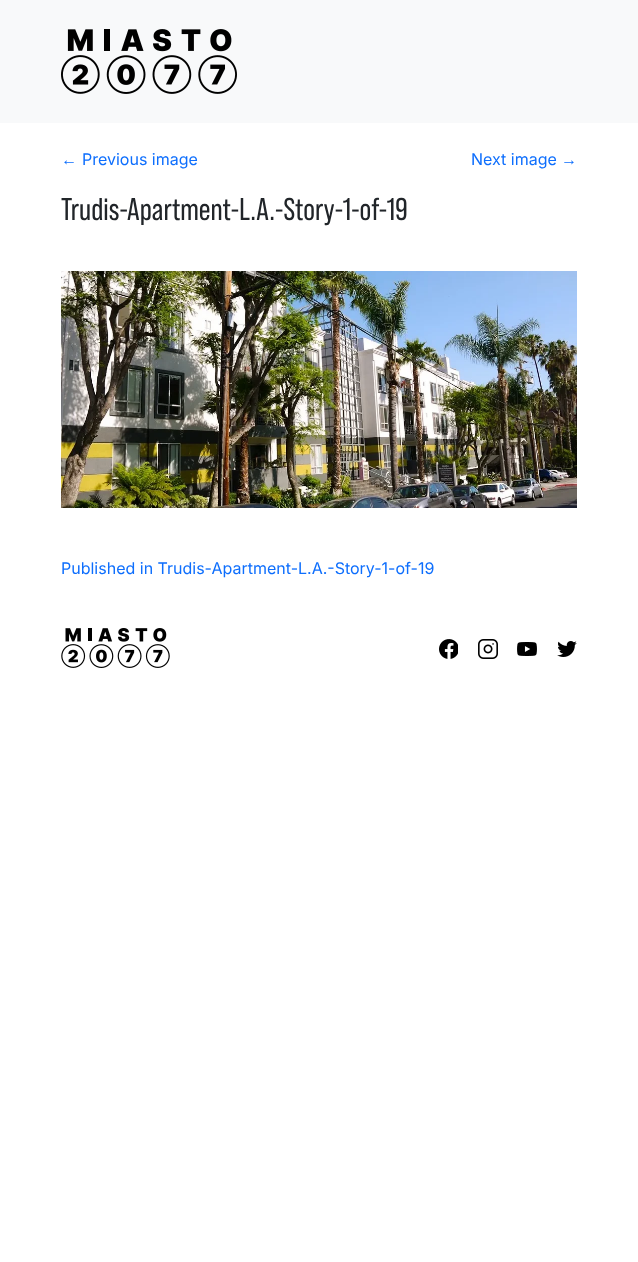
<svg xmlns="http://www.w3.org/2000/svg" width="638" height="1262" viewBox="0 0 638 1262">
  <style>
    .t1 { font: 16px Liberation Sans; fill: #0d6efd; }
    .t2 { font: 16px Inter; fill: #0d6efd; }
    .t3 { font: 31.5px Bebas Neue; fill: #212529; }
  </style>
  <rect width="100%" height="100%" fill="#fff"/>
  <rect x="0" y="0" width="638" height="123" fill="#f8f9fa"/>
  <image x="61" y="29" width="176" height="65" href="images/1.png"/>
  <text x="61" y="165" class="t1">←</text>
  <text x="82" y="165" class="t2">Previous image</text>
  <text x="471" y="165" class="t2">Next image</text>
  <text x="561" y="165" class="t1">→</text>
  <text x="61" y="220" class="t3">Trudis-Apartment-L.A.-Story-1-of-19</text>
  <image x="61" y="271" width="516" height="237" href="images/2.png"/>
  <text x="61" y="574" class="t2">Published in Trudis-Apartment-L.A.-Story-1-of-19</text>
  <image x="61" y="628" width="109" height="40" href="images/3.png"/>
  <image x="439" y="639" width="19" height="20" href="images/4.png"/>
  <image x="478" y="639" width="20" height="20" href="images/5.png"/>
  <image x="517" y="642" width="20" height="14" href="images/6.png"/>
  <image x="557" y="641" width="20" height="16" href="images/7.png"/>
</svg>
